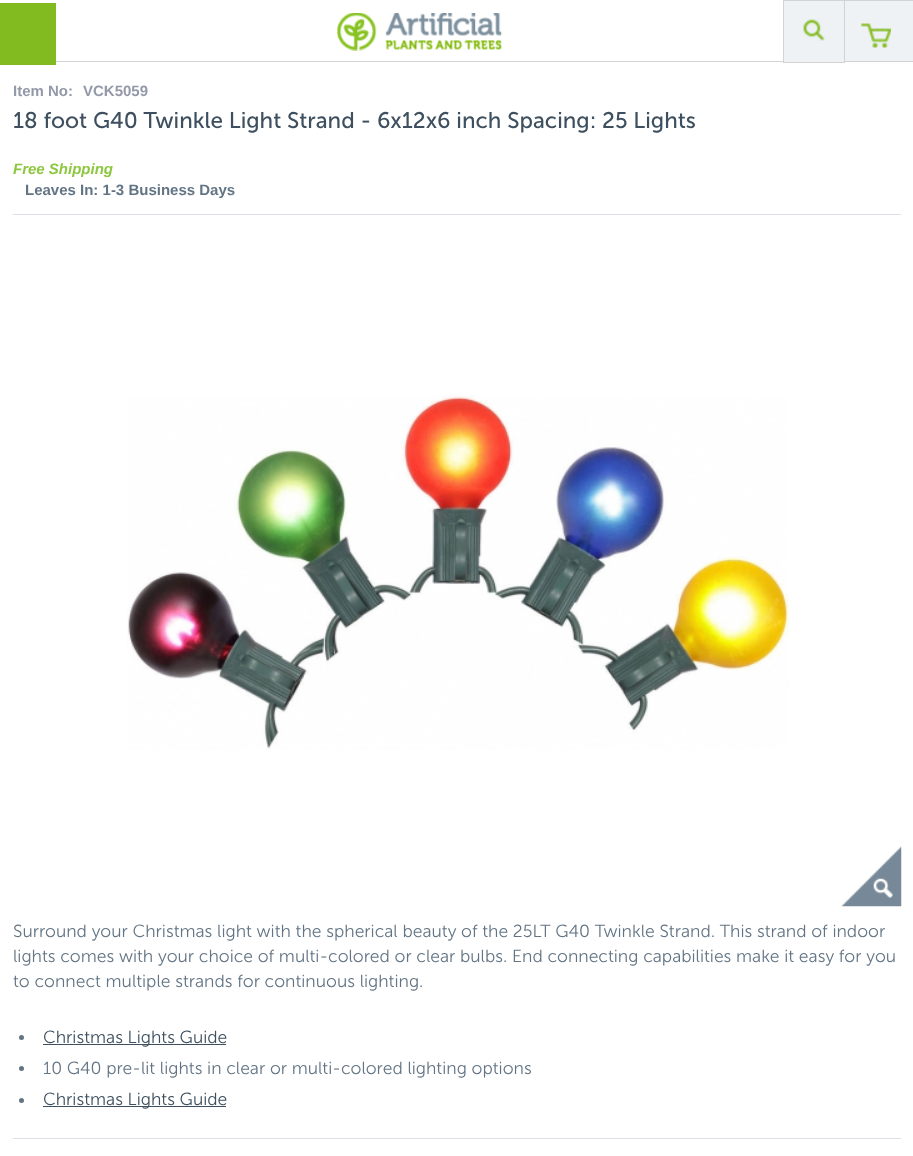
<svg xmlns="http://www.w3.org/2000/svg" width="913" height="1156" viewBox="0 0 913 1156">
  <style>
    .t1 { font: bold 15px Liberation Sans; fill: #9399a9; }
    .t2 { font: 22.5px Museo Sans; fill: #3e505f; }
    .t3 { font: italic bold 15px Liberation Sans; fill: #8dc63f; }
    .t4 { font: bold 15px Liberation Sans; fill: #637585; }
    .t5 { font: 300 17.5px Museo Sans; fill: #637585; }
    .t6 { font: 300 17.5px Museo Sans; fill: #3e505f; }
  </style>
  <rect width="100%" height="100%" fill="#fff"/>
  <rect x="56" y="61" width="857" height="1" fill="#d1d3d4"/>
  <rect x="0" y="3" width="56" height="62" fill="#82bb1f"/>
  <image x="337" y="13" width="165" height="38" href="images/1.png"/>
  <rect x="783.5" y="0.5" width="61" height="62" fill="#eef2f5" stroke="#d1d3d4"/>
  <image x="803" y="19" width="22" height="22" href="images/2.png"/>
  <rect x="845" y="1" width="68" height="60" fill="#eef2f5"/>
  <rect x="845" y="0" width="68" height="1" fill="#d1d3d4"/>
  <image x="861" y="23" width="30" height="25" href="images/3.png"/>
  <text x="13" y="96" class="t1">Item No:</text>
  <text x="83" y="96" class="t1">VCK5059</text>
  <text x="13" y="128" class="t2">18 foot G40 Twinkle Light Strand - 6x12x6 inch Spacing: 25 Lights</text>
  <rect x="13" y="214" width="888" height="1" fill="#dcdfe6"/>
  <text x="13" y="174" class="t3">Free Shipping</text>
  <text x="25" y="195" class="t4">Leaves In: 1-3 Business Days</text>
  <image x="127" y="395" width="662" height="355" href="images/4.png"/>
  <image x="841" y="846" width="61" height="61" href="images/5.png"/>
  <text x="13" y="937" class="t5">Surround your Christmas light with the spherical beauty of the 25LT G40 Twinkle Strand. This strand of indoor</text>
  <text x="13" y="962" class="t5">lights comes with your choice of multi-colored or clear bulbs. End connecting capabilities make it easy for you</text>
  <text x="13" y="987" class="t5">to connect multiple strands for continuous lighting.</text>
  <rect x="13" y="1138" width="888" height="1" fill="#dcdfe6"/>
  <circle cx="21.5" cy="1037.5" r="2.5" fill="#637585"/>
  <rect x="43" y="1044" width="183" height="1" fill="#3e505f"/>
  <text x="43" y="1043" class="t6">Christmas Lights Guide</text>
  <circle cx="21.5" cy="1068.5" r="2.5" fill="#637585"/>
  <text x="43" y="1074" class="t5">10 G40 pre-lit lights in clear or multi-colored lighting options</text>
  <circle cx="21.5" cy="1100.5" r="2.5" fill="#637585"/>
  <rect x="43" y="1106" width="183" height="1" fill="#3e505f"/>
  <text x="43" y="1105" class="t6">Christmas Lights Guide</text>
</svg>
